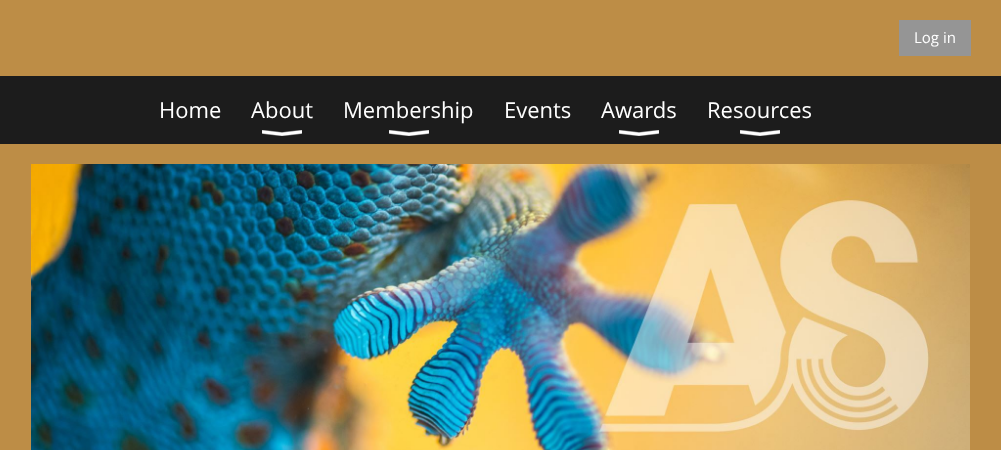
<svg xmlns="http://www.w3.org/2000/svg" width="1001" height="450" viewBox="0 0 1001 450">
  <style>
    .t1 { font: 15px Open Sans; fill: #fff; }
    .t2 { font: 22px Open Sans; fill: #fff; }
  </style>
  <rect width="100%" height="100%" fill="#bd8d46"/>
  <rect x="899" y="20" width="72" height="36" fill="#959595"/>
  <text x="914" y="43" class="t1">Log in</text>
  <rect x="0" y="76" width="1001" height="68" fill="#1c1c1c"/>
  <text x="159" y="118" class="t2">Home</text>
  <text x="251" y="118" class="t2">About</text>
  <image x="262" y="130" width="40" height="6" href="images/1.png"/>
  <text x="343" y="118" class="t2">Membership</text>
  <image x="389" y="130" width="40" height="6" href="images/1.png"/>
  <text x="504" y="118" class="t2">Events</text>
  <text x="601" y="118" class="t2">Awards</text>
  <image x="619" y="130" width="40" height="6" href="images/1.png"/>
  <text x="707" y="118" class="t2">Resources</text>
  <image x="740" y="130" width="40" height="6" href="images/1.png"/>
  <image x="31" y="164" width="939" height="286" href="images/2.png"/>
</svg>
